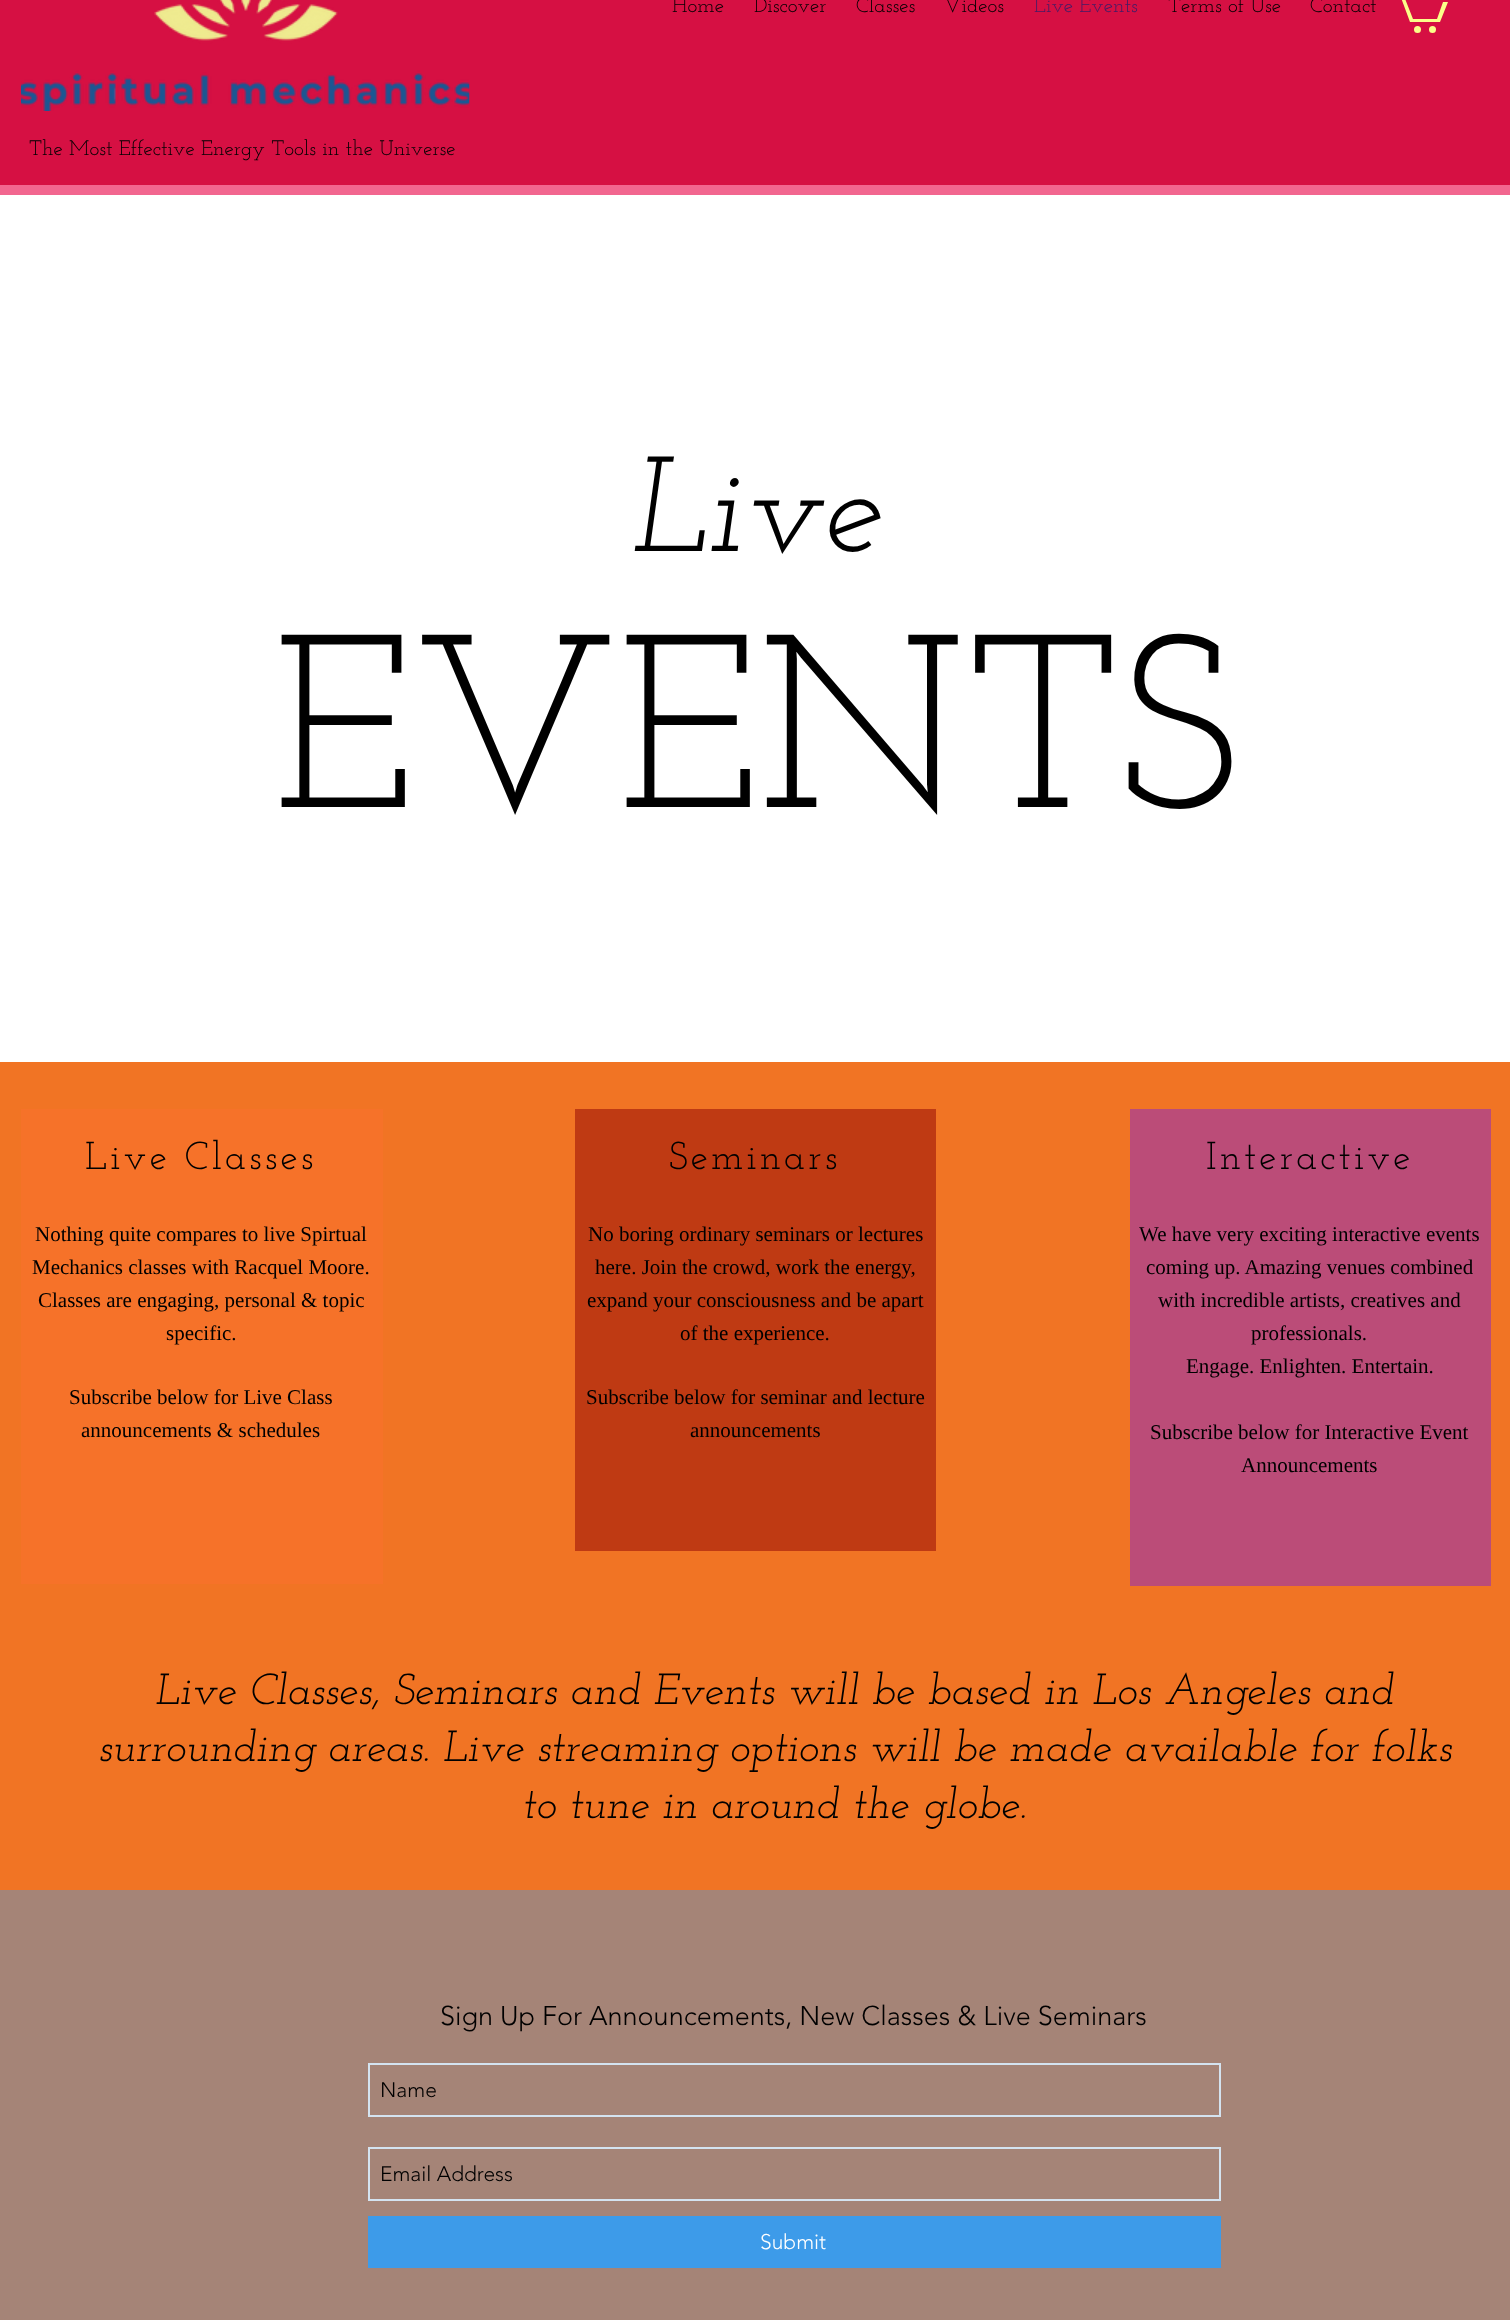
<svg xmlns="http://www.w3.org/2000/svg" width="1510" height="2320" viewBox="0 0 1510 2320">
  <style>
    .t1 { font: 21px Josefin Slab; fill: #000; }
    .t2 { font: 21px Josefin Slab; fill: #411c67; }
    .t3 { font: italic 135px Josefin Slab; fill: #000; }
    .t4 { font: 246px Josefin Slab; fill: #000; }
    .t5 { font: 39px Josefin Slab; letter-spacing: 3.1px; fill: #000; }
    .t6 { font: 21px Liberation Serif; fill: #000; }
    .t7 { font: italic 43.5px Josefin Slab; fill: #000; }
    .t8 { font: 300 27px 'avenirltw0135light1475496'; fill: #000; }
    .t9 { font: 300 21px 'avenirltw0135light1475496'; fill: #000; }
    .t10 { font: 300 21px 'avenirltw0135light1475496'; fill: #fff; }
  </style>
  <rect width="100%" height="100%" fill="#f17424"/>
  <rect x="0" y="0" width="1510" height="185" fill="#d61043"/>
  <rect x="0" y="185" width="1510" height="10" fill="#f2668f"/>
  <image x="21" y="0" width="449" height="111" href="images/1.png"/>
  <text x="672" y="12" class="t1">Home</text>
  <text x="754" y="12" class="t1">Discover</text>
  <text x="856" y="12" class="t1">Classes</text>
  <text x="944" y="12" class="t1">Videos</text>
  <text x="1034" y="12" class="t2">Live Events</text>
  <text x="1168" y="12" class="t1">Terms of Use</text>
  <text x="1310" y="12" class="t1">Contact</text>
  <path d="M1448 2L1440 22H1410L1400-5H1392V-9H1402L1413 19H1437L1443 2" fill="#fbff89"/>
  <circle cx="1432.5" cy="29.5" r="3.5" fill="#fbff89"/>
  <circle cx="1417.5" cy="29.5" r="3.5" fill="#fbff89"/>
  <text x="29" y="155" class="t1">The Most Effective Energy Tools in the Universe</text>
  <rect x="0" y="195" width="1510" height="867" fill="#fff"/>
  <text x="630" y="551" class="t3">Live</text>
  <text x="273" y="807" class="t4">EVENTS</text>
  <rect x="21" y="1109" width="362" height="475" fill="#f67229"/>
  <text x="85" y="1169" class="t5">Live Classes</text>
  <text x="35" y="1241" class="t6">Nothing quite compares to live Spirtual</text>
  <text x="32" y="1274" class="t6">Mechanics classes with Racquel Moore.</text>
  <text x="38" y="1307" class="t6">Classes are engaging, personal &amp; topic</text>
  <text x="166" y="1340" class="t6">specific.</text>
  <text x="69" y="1404" class="t6">Subscribe below for Live Class</text>
  <text x="81" y="1437" class="t6">announcements &amp; schedules</text>
  <rect x="575" y="1109" width="361" height="442" fill="#bf3a13"/>
  <text x="669" y="1169" class="t5">Seminars</text>
  <text x="588" y="1241" class="t6">No boring ordinary seminars or lectures</text>
  <text x="595" y="1274" class="t6">here. Join the crowd, work the energy,</text>
  <text x="587" y="1307" class="t6">expand your consciousness and be apart</text>
  <text x="680" y="1340" class="t6">of the experience.</text>
  <text x="586" y="1404" class="t6">Subscribe below for seminar and lecture</text>
  <text x="690" y="1437" class="t6">announcements</text>
  <rect x="1130" y="1109" width="361" height="477" fill="#bb4c78"/>
  <text x="1206" y="1169" class="t5">Interactive</text>
  <text x="1139" y="1241" class="t6">We have very exciting interactive events</text>
  <text x="1146" y="1274" class="t6">coming up. Amazing venues combined</text>
  <text x="1158" y="1307" class="t6">with incredible artists, creatives and</text>
  <text x="1251" y="1340" class="t6">professionals.</text>
  <text x="1186" y="1373" class="t6">Engage. Enlighten. Entertain.</text>
  <text x="1150" y="1439" class="t6">Subscribe below for Interactive Event</text>
  <text x="1241" y="1472" class="t6">Announcements</text>
  <text x="155" y="1704" class="t7">Live Classes, Seminars and Events will be based in Los Angeles and</text>
  <text x="98" y="1761" class="t7">surrounding areas. Live streaming options will be made available for folks</text>
  <text x="522" y="1818" class="t7">to tune in around the globe.</text>
  <rect x="0" y="1890" width="1510" height="430" fill="#a58477"/>
  <text x="440" y="2025" class="t8">Sign Up For Announcements, New Classes &amp; Live Seminars</text>
  <rect x="369" y="2064" width="851" height="52" fill="none" stroke="#d4e3f0" stroke-width="2"/>
  <text x="380" y="2097" class="t9">Name</text>
  <rect x="369" y="2148" width="851" height="52" fill="none" stroke="#d4e3f0" stroke-width="2"/>
  <text x="380" y="2181" class="t9">Email Address</text>
  <rect x="368" y="2216" width="853" height="52" fill="#3d9be9"/>
  <text x="760" y="2249" class="t10">Submit</text>
</svg>
